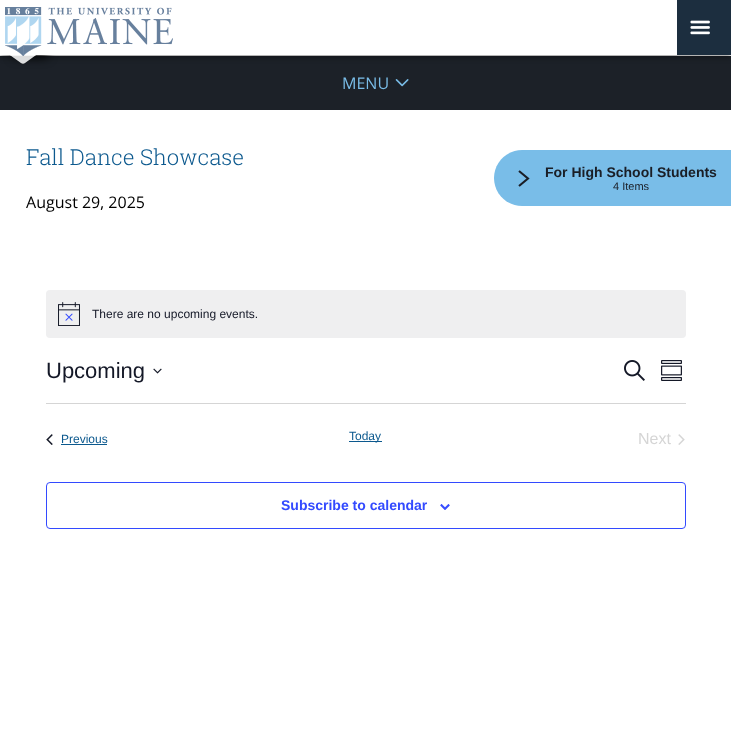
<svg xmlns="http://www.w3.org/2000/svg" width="731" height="751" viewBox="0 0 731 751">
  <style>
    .t1 { font: 16px Open Sans; fill: #79bce7; }
    .t2 { font: 300 22px Roboto Slab; fill: #0c598e; }
    .t3 { font: 16px Open Sans; fill: #000; }
    .t4 { font: 12px Liberation Sans; fill: #141827; }
    .t5 { font: 22px Liberation Sans; fill: #141827; }
    .t6 { font: 12px Liberation Sans; fill: #0c598e; }
    .t7 { font: 16px Liberation Sans; fill: #d5d5d5; }
    .t8 { font: bold 14px Liberation Sans; fill: #334aff; }
    .t9 { font: bold 14px Liberation Sans; fill: #1a1e26; }
    .t10 { font: 11px Liberation Sans; fill: #1a1e26; }
  </style>
  <defs>
    <clipPath id="clip1"><path d="M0 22H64V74H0ZM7 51L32.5 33C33.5 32.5 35 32.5 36 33L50 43C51 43.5 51 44.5 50 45L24.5 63C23.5 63.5 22 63.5 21 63L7 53C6 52.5 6 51.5 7 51Z" clip-rule="evenodd"/></clipPath>
  </defs>
  <rect width="100%" height="100%" fill="#fff"/>
  <rect x="0" y="56" width="731" height="54" fill="#1c2128"/>
  <rect x="0" y="3" width="731" height="55" fill="#00000059" filter="blur(2.5px)"/>
  <rect x="0" y="0" width="677" height="55" fill="#fff"/>
  <g clip-path="url(#clip1)">
    <rect x="13" y="38" width="35" height="20" rx="2" fill="#000000d9" filter="blur(5px)"/>
  </g>
  <path d="M7 51L32 33C33 32 35 32 36 33L50 43C51 44 51 45 50 45L25 63C24 64 22 64 21 63L7 53C6 52 6 51 7 51Z" fill="#ffffffd9"/>
  <rect x="2" y="27" width="57" height="28" fill="#fff"/>
  <image x="5" y="7" width="168" height="49" href="images/1.png"/>
  <rect x="677" y="0" width="54" height="55" fill="#1c2e3f"/>
  <image x="690" y="20" width="20" height="15" href="images/2.png"/>
  <text x="342" y="89" class="t1">MENU</text>
  <image x="395" y="79" width="14" height="8" href="images/3.png"/>
  <text x="26" y="165" class="t2">Fall Dance Showcase</text>
  <text x="26" y="208" class="t3">August 29, 2025</text>
  <rect x="46" y="290" width="640" height="48" rx="4" fill="#efeff0"/>
  <image x="58" y="302" width="22" height="24" href="images/4.png"/>
  <text x="92" y="318" class="t4">There are no upcoming events.</text>
  <text x="46" y="378" class="t5">Upcoming</text>
  <image x="153" y="368" width="9" height="6" href="images/5.png"/>
  <image x="624" y="360" width="21" height="21" href="images/6.png"/>
  <image x="661" y="360" width="21" height="21" href="images/7.png"/>
  <rect x="46" y="403" width="640" height="1" fill="#d5d5d5"/>
  <image x="46" y="434" width="7" height="11" href="images/8.png"/>
  <text x="61" y="443" class="t6">Previous</text>
  <rect x="61" y="444" width="46" height="1" fill="#0c598e"/>
  <rect x="349" y="441" width="33" height="1" fill="#0c598e"/>
  <text x="349" y="440" class="t6">Today</text>
  <text x="638" y="444" class="t7">Next</text>
  <image x="678" y="434" width="7" height="11" href="images/9.png"/>
  <rect x="46.5" y="482.5" width="639" height="46" rx="3.5" fill="none" stroke="#334aff"/>
  <text x="281" y="510" class="t8">Subscribe to calendar</text>
  <image x="440" y="504" width="10" height="6" href="images/10.png"/>
  <path d="M522 150H731V206H522C506.5 206 494 193.5 494 178C494 162.5 506.5 150 522 150Z" fill="#79bde8"/>
  <path d="M519 186L528 178.5L519 171" fill="none" stroke="#1a1e26" stroke-width="2.1"/>
  <text x="545" y="177" class="t9">For High School Students</text>
  <text x="613" y="190" class="t10">4 Items</text>
</svg>
